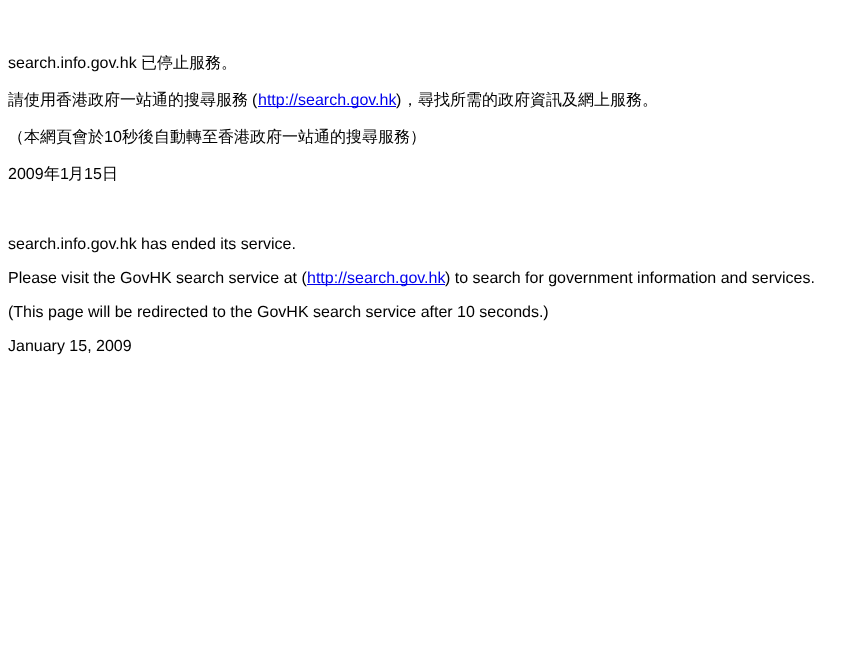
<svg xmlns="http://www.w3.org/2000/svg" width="857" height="652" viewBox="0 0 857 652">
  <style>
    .t1 { font: 16px Liberation Sans; fill: #000; }
    .t2 { font: 500 16px WenQuanYi Zen Hei; fill: #000; }
    .t3 { font: 16px Liberation Sans; fill: #00e; }
  </style>
  <rect width="100%" height="100%" fill="#fff"/>
  <text x="8" y="68" class="t1">search.info.gov.hk</text>
  <text x="141" y="68" class="t2">已停止服務。</text>
  <text x="8" y="105" class="t2">請使用香港政府一站通的搜尋服務</text>
  <text x="252" y="105" class="t1">(</text>
  <rect x="258" y="106" width="138" height="1" fill="#00e"/>
  <text x="258" y="105" class="t3">http://search.gov.hk</text>
  <text x="396" y="105" class="t1">)</text>
  <text x="402" y="105" class="t2">，尋找所需的政府資訊及網上服務。</text>
  <text x="8" y="142" class="t2">（本網頁會於</text>
  <text x="104" y="142" class="t1">10</text>
  <text x="122" y="142" class="t2">秒後自動轉至香港政府一站通的搜尋服務）</text>
  <text x="8" y="179" class="t1">2009</text>
  <text x="44" y="179" class="t2">年</text>
  <text x="60" y="179" class="t1">1</text>
  <text x="68" y="179" class="t2">月</text>
  <text x="84" y="179" class="t1">15</text>
  <text x="102" y="179" class="t2">日</text>
  <text x="8" y="249" class="t1">search.info.gov.hk has ended its service.</text>
  <text x="8" y="283" class="t1">Please visit the GovHK search service at (</text>
  <rect x="307" y="284" width="138" height="1" fill="#00e"/>
  <text x="307" y="283" class="t3">http://search.gov.hk</text>
  <text x="445" y="283" class="t1">) to search for government information and services.</text>
  <text x="8" y="317" class="t1">(This page will be redirected to the GovHK search service after 10 seconds.)</text>
  <text x="8" y="351" class="t1">January 15, 2009</text>
</svg>
